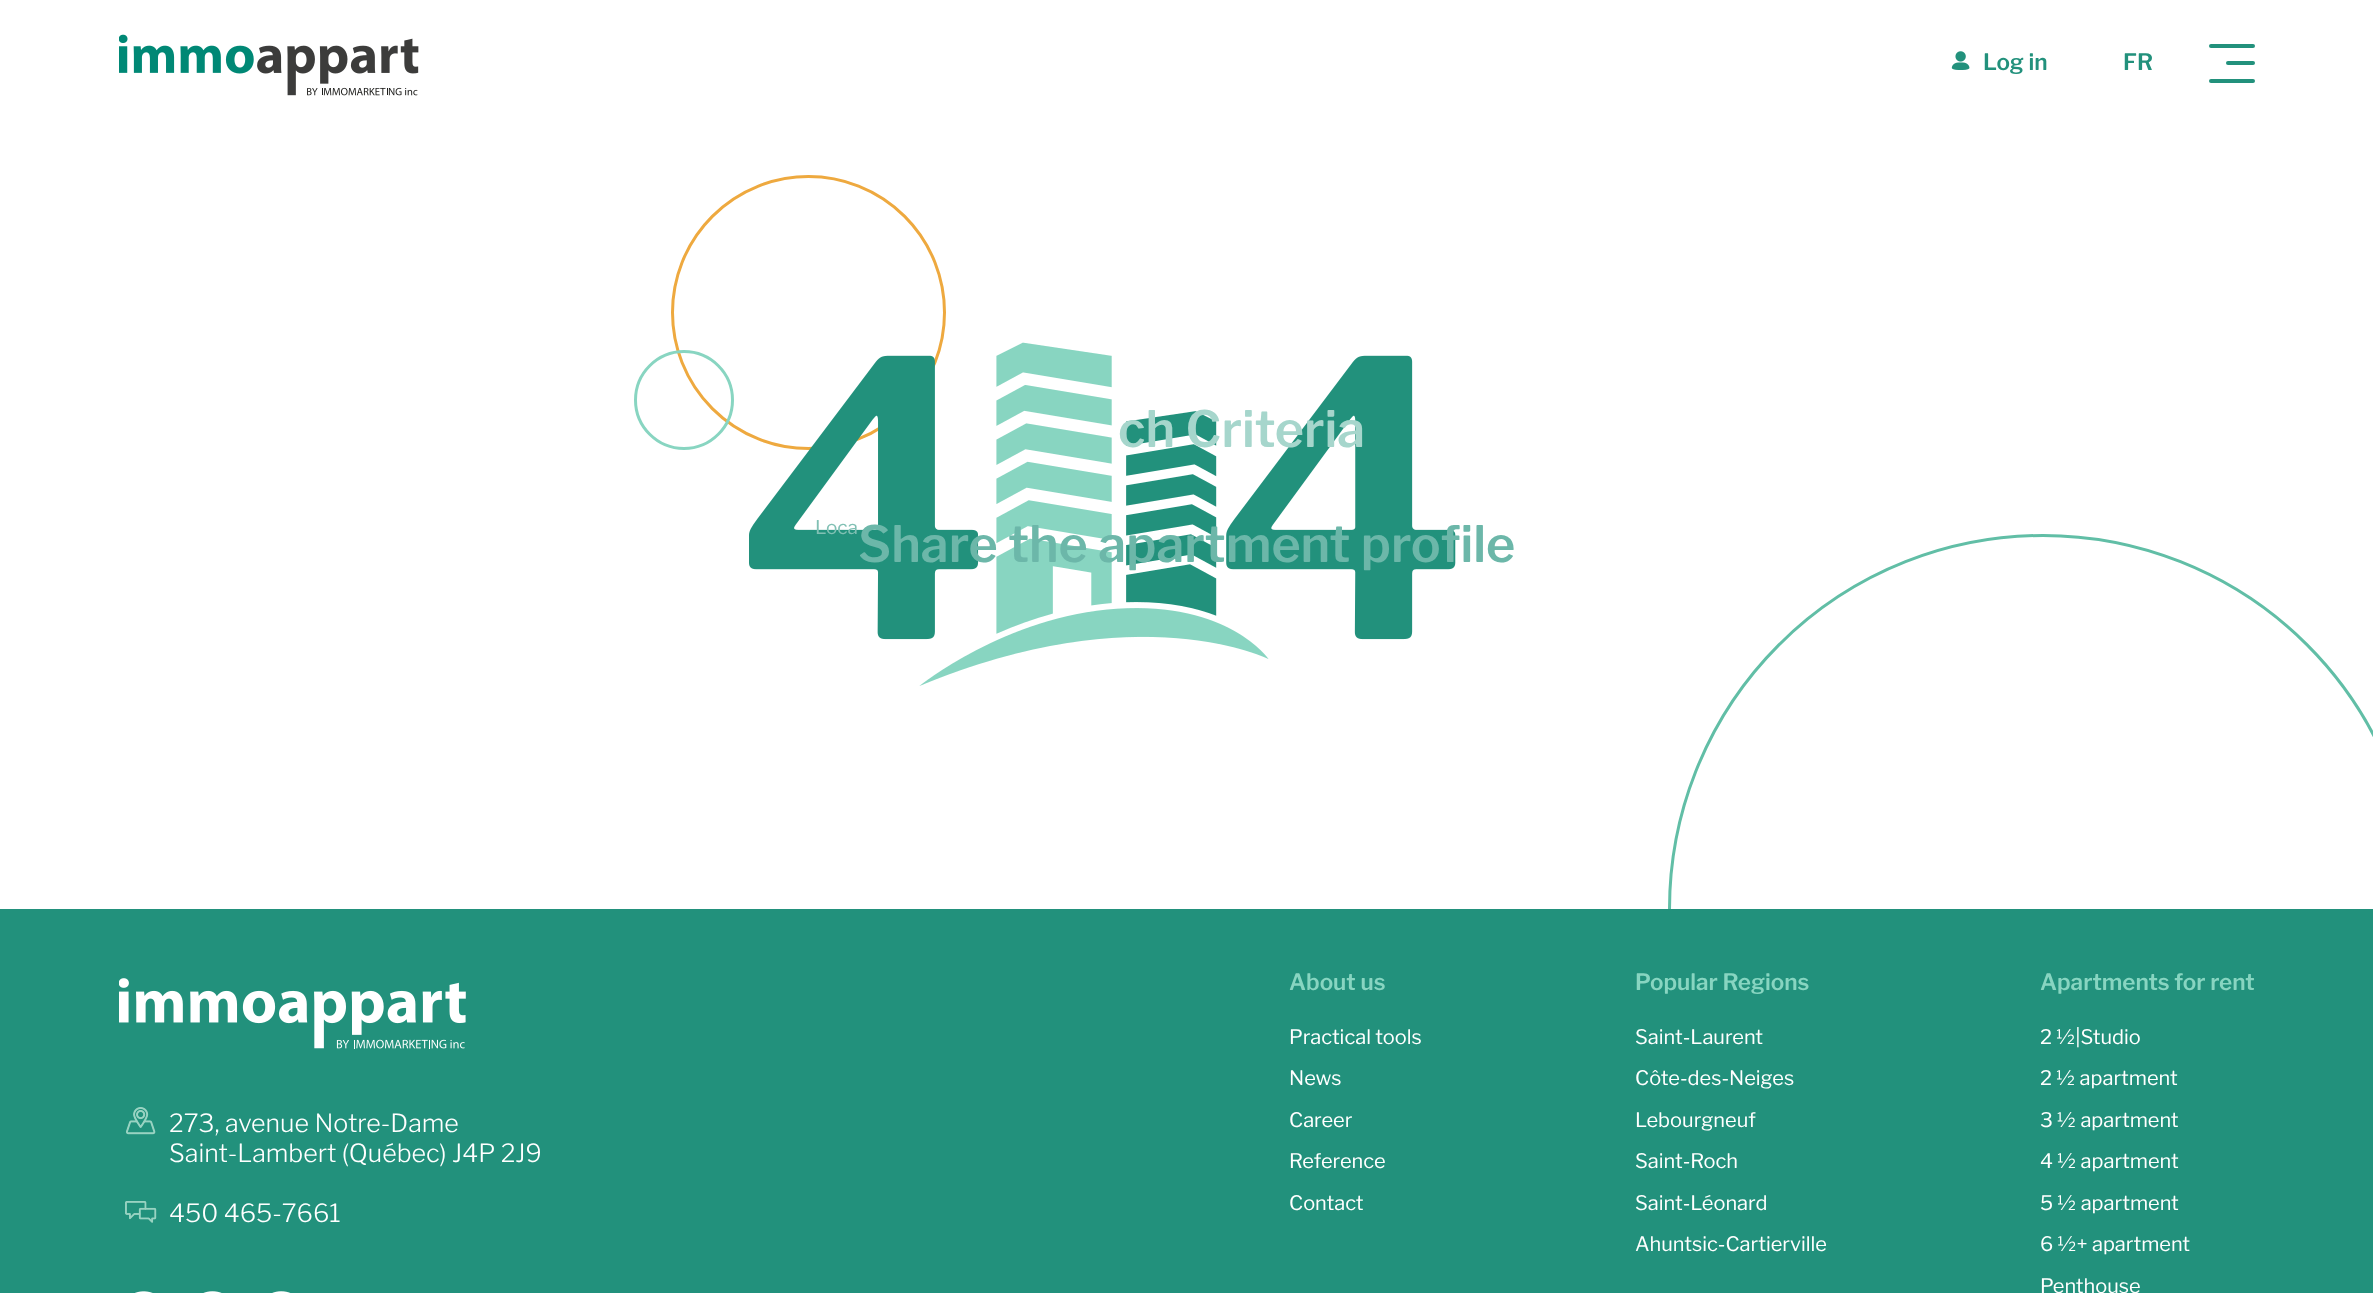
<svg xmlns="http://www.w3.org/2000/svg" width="2373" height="1293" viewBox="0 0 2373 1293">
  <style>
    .t1 { font: 600 22.5px Libre Franklin; fill: #22917c; }
    .t2 { font: 600 50px Libre Franklin; fill: #a6d6cc; }
    .t3 { font: 19px Libre Franklin; fill: #81c0b4; }
    .t4 { font: 600 50px Libre Franklin; fill: #6cb7a9; }
    .t5 { font: 300 25px Libre Franklin; fill: #fff; }
    .t6 { font: 600 22.5px Libre Franklin; fill: #88d5c1; }
    .t7 { font: 20px Libre Franklin; fill: #fff; }
  </style>
  <rect width="100%" height="100%" fill="#fff"/>
  <image x="119" y="34" width="300" height="62" href="images/1.png"/>
  <image x="1951" y="51" width="19" height="19" href="images/2.png"/>
  <text x="1983" y="70" class="t1">Log in</text>
  <text x="2123" y="70" class="t1">FR</text>
  <rect x="2209" y="44" width="46" height="4" rx="2" fill="#22917c"/>
  <rect x="2226" y="61" width="29" height="4" rx="2" fill="#22917c"/>
  <rect x="2209" y="79" width="46" height="4" rx="2" fill="#22917c"/>
  <circle cx="808.5" cy="312.5" r="136" fill="none" stroke="#eea93f" stroke-width="3"/>
  <image x="749" y="342" width="707" height="344" href="images/3.png"/>
  <text x="1118" y="447" class="t2">ch Criteria</text>
  <text x="815" y="534" class="t3">Loca</text>
  <text x="858" y="562" class="t4">Share the apartment profile</text>
  <circle cx="684" cy="400" r="48.5" fill="none" stroke="#88d5c1" stroke-width="3"/>
  <circle cx="2043" cy="909" r="373.5" fill="none" stroke="#61bea6" stroke-width="3"/>
  <rect x="0" y="909" width="2373" height="384" fill="#22917c"/>
  <image x="119" y="978" width="347" height="71" href="images/4.png"/>
  <image x="126" y="1107" width="30" height="28" href="images/5.png"/>
  <text x="169" y="1132" class="t5">273, avenue Notre-Dame</text>
  <text x="169" y="1162" class="t5">Saint-Lambert (Québec) J4P 2J9</text>
  <image x="125" y="1201" width="32" height="22" href="images/6.png"/>
  <text x="169" y="1222" class="t5">450 465-7661</text>
  <image x="135" y="1291" width="18" height="2" href="images/7.png"/>
  <image x="203" y="1291" width="19" height="2" href="images/8.png"/>
  <image x="272" y="1291" width="19" height="2" href="images/9.png"/>
  <text x="1289" y="990" class="t6">About us</text>
  <text x="1289" y="1044" class="t7">Practical tools</text>
  <text x="1289" y="1085" class="t7">News</text>
  <text x="1289" y="1127" class="t7">Career</text>
  <text x="1289" y="1168" class="t7">Reference</text>
  <text x="1289" y="1210" class="t7">Contact</text>
  <text x="1635" y="990" class="t6">Popular Regions</text>
  <text x="1635" y="1044" class="t7">Saint-Laurent</text>
  <text x="1635" y="1085" class="t7">Côte-des-Neiges</text>
  <text x="1635" y="1127" class="t7">Lebourgneuf</text>
  <text x="1635" y="1168" class="t7">Saint-Roch</text>
  <text x="1635" y="1210" class="t7">Saint-Léonard</text>
  <text x="1635" y="1251" class="t7">Ahuntsic-Cartierville</text>
  <text x="2040" y="990" class="t6">Apartments for rent</text>
  <text x="2040" y="1044" class="t7">2 ½|Studio</text>
  <text x="2040" y="1085" class="t7">2 ½ apartment</text>
  <text x="2040" y="1127" class="t7">3 ½ apartment</text>
  <text x="2040" y="1168" class="t7">4 ½ apartment</text>
  <text x="2040" y="1210" class="t7">5 ½ apartment</text>
  <text x="2040" y="1251" class="t7">6 ½+ apartment</text>
  <text x="2040" y="1293" class="t7">Penthouse</text>
</svg>
